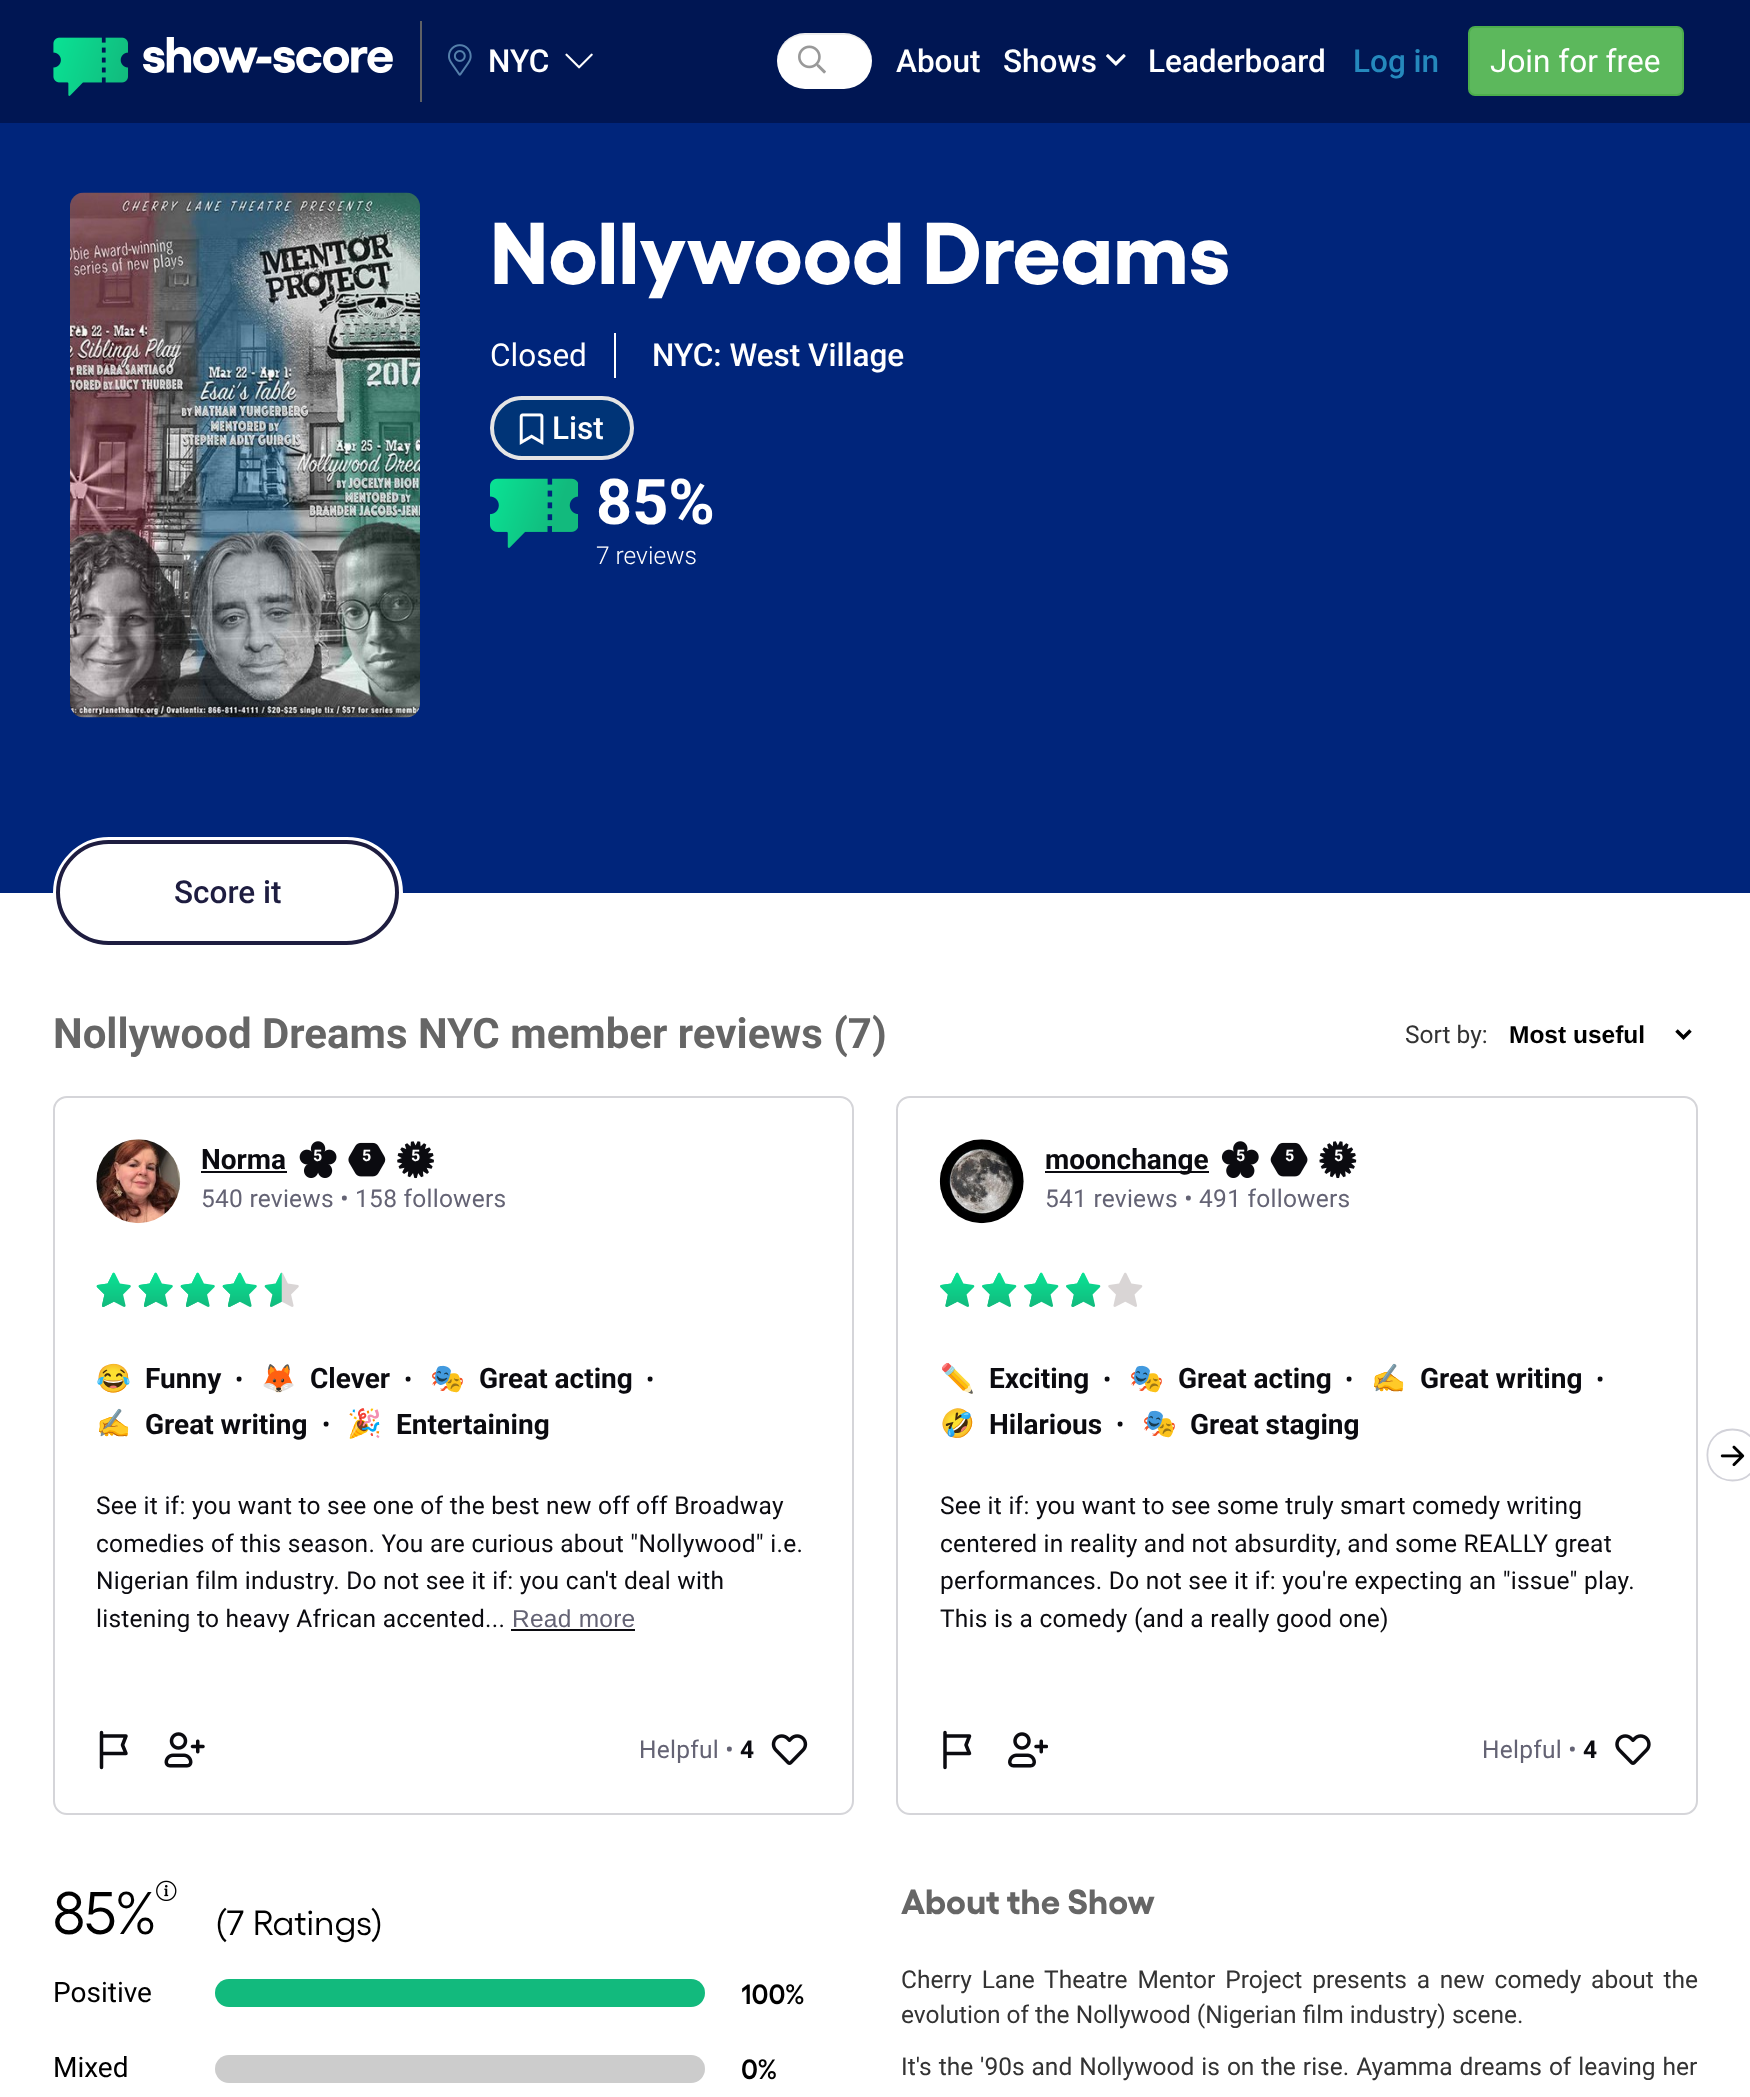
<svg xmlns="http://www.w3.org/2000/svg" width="1750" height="2097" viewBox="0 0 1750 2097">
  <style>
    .t1 { font: 500 31.5px Roboto; fill: #fff; }
    .t2 { font: 500 31.5px Roboto; fill: #2589bd; }
    .t3 { font: 31.5px Roboto; fill: #fff; }
    .t4 { font: bold 87.5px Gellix; fill: #fff; }
    .t5 { font: bold 63px Roboto; fill: #fff; }
    .t6 { font: 300 24.5px Roboto; fill: #fff; }
    .t7 { font: 500 31.5px Roboto; fill: #1e1d40; }
    .t8 { font: bold 42px Roboto; fill: #666; }
    .t9 { font: 24.5px Roboto; fill: #333; }
    .t10 { font: bold 24.5px Liberation Sans; fill: #000; }
    .t11 { font: bold 28px Roboto; fill: #0b0b10; }
    .t12 { font: bold 16px Roboto; fill: #fff; }
    .t13 { font: 24.5px Roboto; letter-spacing: 0.25px; fill: #646374; }
    .t14 { font: 28px Noto Color Emoji; fill: #0b0b10; }
    .t15 { font: 24.5px Roboto; fill: #0b0b10; }
    .t16 { font: 24.5px Roboto; letter-spacing: 0.25px; fill: #0b0b10; }
    .t17 { font: 24.5px Liberation Sans; letter-spacing: 0.25px; fill: #646374; }
    .t18 { font: bold 24.5px Roboto; letter-spacing: 0.25px; fill: #0b0b10; }
    .t19 { font: 60px Gellix; fill: #000; }
    .t20 { font: 35px Gellix; fill: #000; }
    .t21 { font: 28px Roboto; fill: #000; }
    .t22 { font: 600 28px Gellix; fill: #000; }
    .t23 { font: bold 35px Gellix; fill: #666; }
  </style>
  <rect width="100%" height="100%" fill="#fff"/>
  <rect x="0" y="0" width="1750" height="123" fill="#001653"/>
  <image x="53" y="37" width="340" height="59" href="images/1.png"/>
  <rect x="420" y="21" width="2" height="81" fill="#5f6165"/>
  <image x="448" y="44" width="24" height="32" href="images/2.png"/>
  <text x="488" y="72" class="t1">NYC</text>
  <image x="565" y="53" width="28" height="16" href="images/3.png"/>
  <rect x="777" y="33" width="95" height="56" rx="28" fill="#fff"/>
  <path d="M805 35H844C859 35 871 47 872 62C872 49 863 36 850 34C842 32 833 33 824 33C816 33 807 32 799 34C786 36 777 49 777 62C778 47 790 35 805 35Z" fill="#00000012"/>
  <image x="798" y="45" width="28" height="29" href="images/4.png"/>
  <text x="896" y="72" class="t1">About</text>
  <text x="1003" y="72" class="t1">Shows</text>
  <image x="1106" y="54" width="20" height="12" href="images/5.png"/>
  <text x="1148" y="72" class="t1">Leaderboard</text>
  <text x="1353" y="72" class="t2">Log in</text>
  <rect x="1469" y="27" width="214" height="68" rx="6" fill="#5cb85c" stroke="#4cae4c" stroke-width="2"/>
  <text x="1490" y="72" class="t3">Join for free</text>
  <rect x="0" y="123" width="1750" height="770" fill="#00257b"/>
  <image x="70" y="192" width="350" height="526" href="images/6.png"/>
  <text x="490" y="284" class="t4">Nollywood Dreams</text>
  <text x="490" y="366" class="t3">Closed</text>
  <rect x="614" y="333" width="2" height="45" fill="#fff"/>
  <text x="652" y="366" class="t1">NYC: West Village</text>
  <rect x="492" y="398" width="140" height="60" rx="30" fill="#003477" stroke="#e4e4e4" stroke-width="4"/>
  <image x="519" y="413" width="25" height="32" href="images/7.png"/>
  <text x="552" y="439" class="t1">List</text>
  <image x="490" y="478" width="88" height="70" href="images/8.png"/>
  <text x="596" y="524" class="t5">85%</text>
  <text x="596" y="564" class="t6">7 reviews</text>
  <rect x="55" y="839" width="346" height="108" rx="54" fill="#fff" stroke="#fff" stroke-width="4"/>
  <rect x="58" y="842" width="339" height="101" rx="50.5" fill="none" stroke="#1e1d40" stroke-width="4"/>
  <text x="174" y="903" class="t7">Score it</text>
  <text x="53" y="1048" class="t8">Nollywood Dreams NYC member reviews (7)</text>
  <text x="1405" y="1043" class="t9">Sort by:</text>
  <path d="M1676.5 1030.5L1683.5 1037.5L1690.5 1030.5" fill="none" stroke="#000" stroke-width="3.5"/>
  <text x="1509" y="1043" class="t10">Most useful</text>
  <rect x="54" y="1097" width="799" height="717" rx="13" fill="none" stroke="#d5d5d9" stroke-width="2"/>
  <image x="96" y="1139" width="85" height="85" href="images/9.png"/>
  <text x="201" y="1169" class="t11">Norma</text>
  <rect x="201" y="1171" width="86" height="2" fill="#0b0b10"/>
  <image x="299" y="1141" width="38" height="37" href="images/10.png"/>
  <text x="313" y="1161" class="t12">5</text>
  <image x="348" y="1142" width="38" height="35" href="images/11.png"/>
  <text x="362" y="1161" class="t12">5</text>
  <image x="397" y="1141" width="37" height="38" href="images/12.png"/>
  <text x="411" y="1161" class="t12">5</text>
  <text x="201" y="1207" class="t13">540 reviews • 158 followers</text>
  <image x="96" y="1272" width="35" height="35" href="images/13.png"/>
  <image x="138" y="1272" width="35" height="35" href="images/13.png"/>
  <image x="180" y="1272" width="35" height="35" href="images/13.png"/>
  <image x="222" y="1272" width="35" height="35" href="images/13.png"/>
  <image x="264" y="1272" width="35" height="35" href="images/14.png"/>
  <text x="96" y="1388" class="t14">😂</text>
  <text x="145" y="1388" class="t11">Funny</text>
  <text x="235" y="1388" class="t15">•</text>
  <text x="261" y="1388" class="t14">🦊</text>
  <text x="310" y="1388" class="t11">Clever</text>
  <text x="404" y="1388" class="t15">•</text>
  <text x="430" y="1388" class="t14">🎭</text>
  <text x="479" y="1388" class="t11">Great acting</text>
  <text x="646" y="1388" class="t15">•</text>
  <text x="96" y="1433" class="t14">✍️</text>
  <text x="145" y="1434" class="t11">Great writing</text>
  <text x="322" y="1433" class="t15">•</text>
  <text x="347" y="1433" class="t14">🎉</text>
  <text x="396" y="1434" class="t11">Entertaining</text>
  <text x="96" y="1514" class="t16">See it if: you want to see one of the best new off off Broadway</text>
  <text x="96" y="1552" class="t16">comedies of this season. You are curious about "Nollywood" i.e.</text>
  <text x="96" y="1589" class="t16">Nigerian film industry. Do not see it if: you can't deal with</text>
  <text x="96" y="1627" class="t16">listening to heavy African accented...</text>
  <text x="512" y="1627" class="t17">Read more</text>
  <rect x="511" y="1629" width="124" height="2" fill="#0b0b10"/>
  <path d="M101.5 1736H126L122.5 1745L126 1753.5H101.5M101.5 1736V1753.5M101.5 1736V1732.5M101.5 1767.5V1753.5" fill="none" stroke="#0b0b10" stroke-width="3.5" stroke-linecap="round" stroke-linejoin="round"/>
  <image x="164" y="1732" width="41" height="36" href="images/15.png"/>
  <text x="639" y="1758" class="t13">Helpful •</text>
  <text x="740" y="1758" class="t18">4</text>
  <image x="771" y="1734" width="37" height="31" href="images/16.png"/>
  <rect x="897" y="1097" width="800" height="717" rx="13" fill="none" stroke="#d5d5d9" stroke-width="2"/>
  <image x="939" y="1139" width="85" height="85" href="images/17.png"/>
  <rect x="1045" y="1171" width="164" height="2" fill="#0b0b10"/>
  <text x="1045" y="1169" class="t11">moonchange</text>
  <image x="1221" y="1141" width="38" height="37" href="images/18.png"/>
  <text x="1236" y="1161" class="t12">5</text>
  <image x="1270" y="1142" width="38" height="35" href="images/19.png"/>
  <text x="1285" y="1161" class="t12">5</text>
  <image x="1319" y="1141" width="38" height="38" href="images/20.png"/>
  <text x="1334" y="1161" class="t12">5</text>
  <text x="1045" y="1207" class="t13">541 reviews • 491 followers</text>
  <image x="940" y="1272" width="35" height="35" href="images/21.png"/>
  <image x="982" y="1272" width="35" height="35" href="images/21.png"/>
  <image x="1024" y="1272" width="35" height="35" href="images/21.png"/>
  <image x="1066" y="1272" width="35" height="35" href="images/21.png"/>
  <image x="1108" y="1272" width="35" height="35" href="images/22.png"/>
  <text x="940" y="1388" class="t14">✏️</text>
  <text x="989" y="1388" class="t11">Exciting</text>
  <text x="1103" y="1388" class="t15">•</text>
  <text x="1129" y="1388" class="t14">🎭</text>
  <text x="1178" y="1388" class="t11">Great acting</text>
  <text x="1345" y="1388" class="t15">•</text>
  <text x="1371" y="1388" class="t14">✍️</text>
  <text x="1420" y="1388" class="t11">Great writing</text>
  <text x="1596" y="1388" class="t15">•</text>
  <text x="940" y="1433" class="t14">🤣</text>
  <text x="989" y="1434" class="t11">Hilarious</text>
  <text x="1116" y="1433" class="t15">•</text>
  <text x="1142" y="1433" class="t14">🎭</text>
  <text x="1190" y="1434" class="t11">Great staging</text>
  <text x="940" y="1514" class="t16">See it if: you want to see some truly smart comedy writing</text>
  <text x="940" y="1552" class="t16">centered in reality and not absurdity, and some REALLY great</text>
  <text x="940" y="1589" class="t16">performances. Do not see it if: you're expecting an "issue" play.</text>
  <text x="940" y="1627" class="t16">This is a comedy (and a really good one)</text>
  <path d="M945 1736H969.5L966 1745L969.5 1753.5H945M945 1736V1753.5M945 1736V1732.5M945 1767.5V1753.5" fill="none" stroke="#0b0b10" stroke-width="3.5" stroke-linecap="round" stroke-linejoin="round"/>
  <image x="1008" y="1732" width="40" height="36" href="images/23.png"/>
  <text x="1482" y="1758" class="t13">Helpful •</text>
  <text x="1583" y="1758" class="t18">4</text>
  <image x="1615" y="1734" width="36" height="31" href="images/24.png"/>
  <path d="M1732.5 1480.5C1699 1480.5 1699 1429.5 1732.5 1429.5C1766 1429.5 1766 1480.5 1732.5 1480.5Z" fill="none" stroke="#d2d2d9" stroke-width="1.8"/>
  <image x="1720" y="1445" width="25" height="22" href="images/25.png"/>
  <text x="53" y="1934" class="t19">85%</text>
  <image x="156" y="1880" width="21" height="21" href="images/26.png"/>
  <text x="215" y="1935" class="t20">(7 Ratings)</text>
  <text x="53" y="2002" class="t21">Positive</text>
  <rect x="215" y="1979" width="490" height="28" rx="14" fill="#12ba7d"/>
  <text x="741" y="2004" class="t22">100%</text>
  <text x="53" y="2077" class="t21">Mixed</text>
  <rect x="215" y="2055" width="490" height="28" rx="14" fill="#ccc"/>
  <text x="741" y="2079" class="t22">0%</text>
  <text x="901" y="1914" class="t23">About the Show</text>
  <text x="901" y="1988" word-spacing="3.75" class="t9">Cherry Lane Theatre Mentor Project presents a new comedy about the</text>
  <text x="901" y="2023" class="t9">evolution of the Nollywood (Nigerian film industry) scene.</text>
  <text x="901" y="2075" word-spacing="0.9" class="t9">It's the '90s and Nollywood is on the rise. Ayamma dreams of leaving her</text>
</svg>
